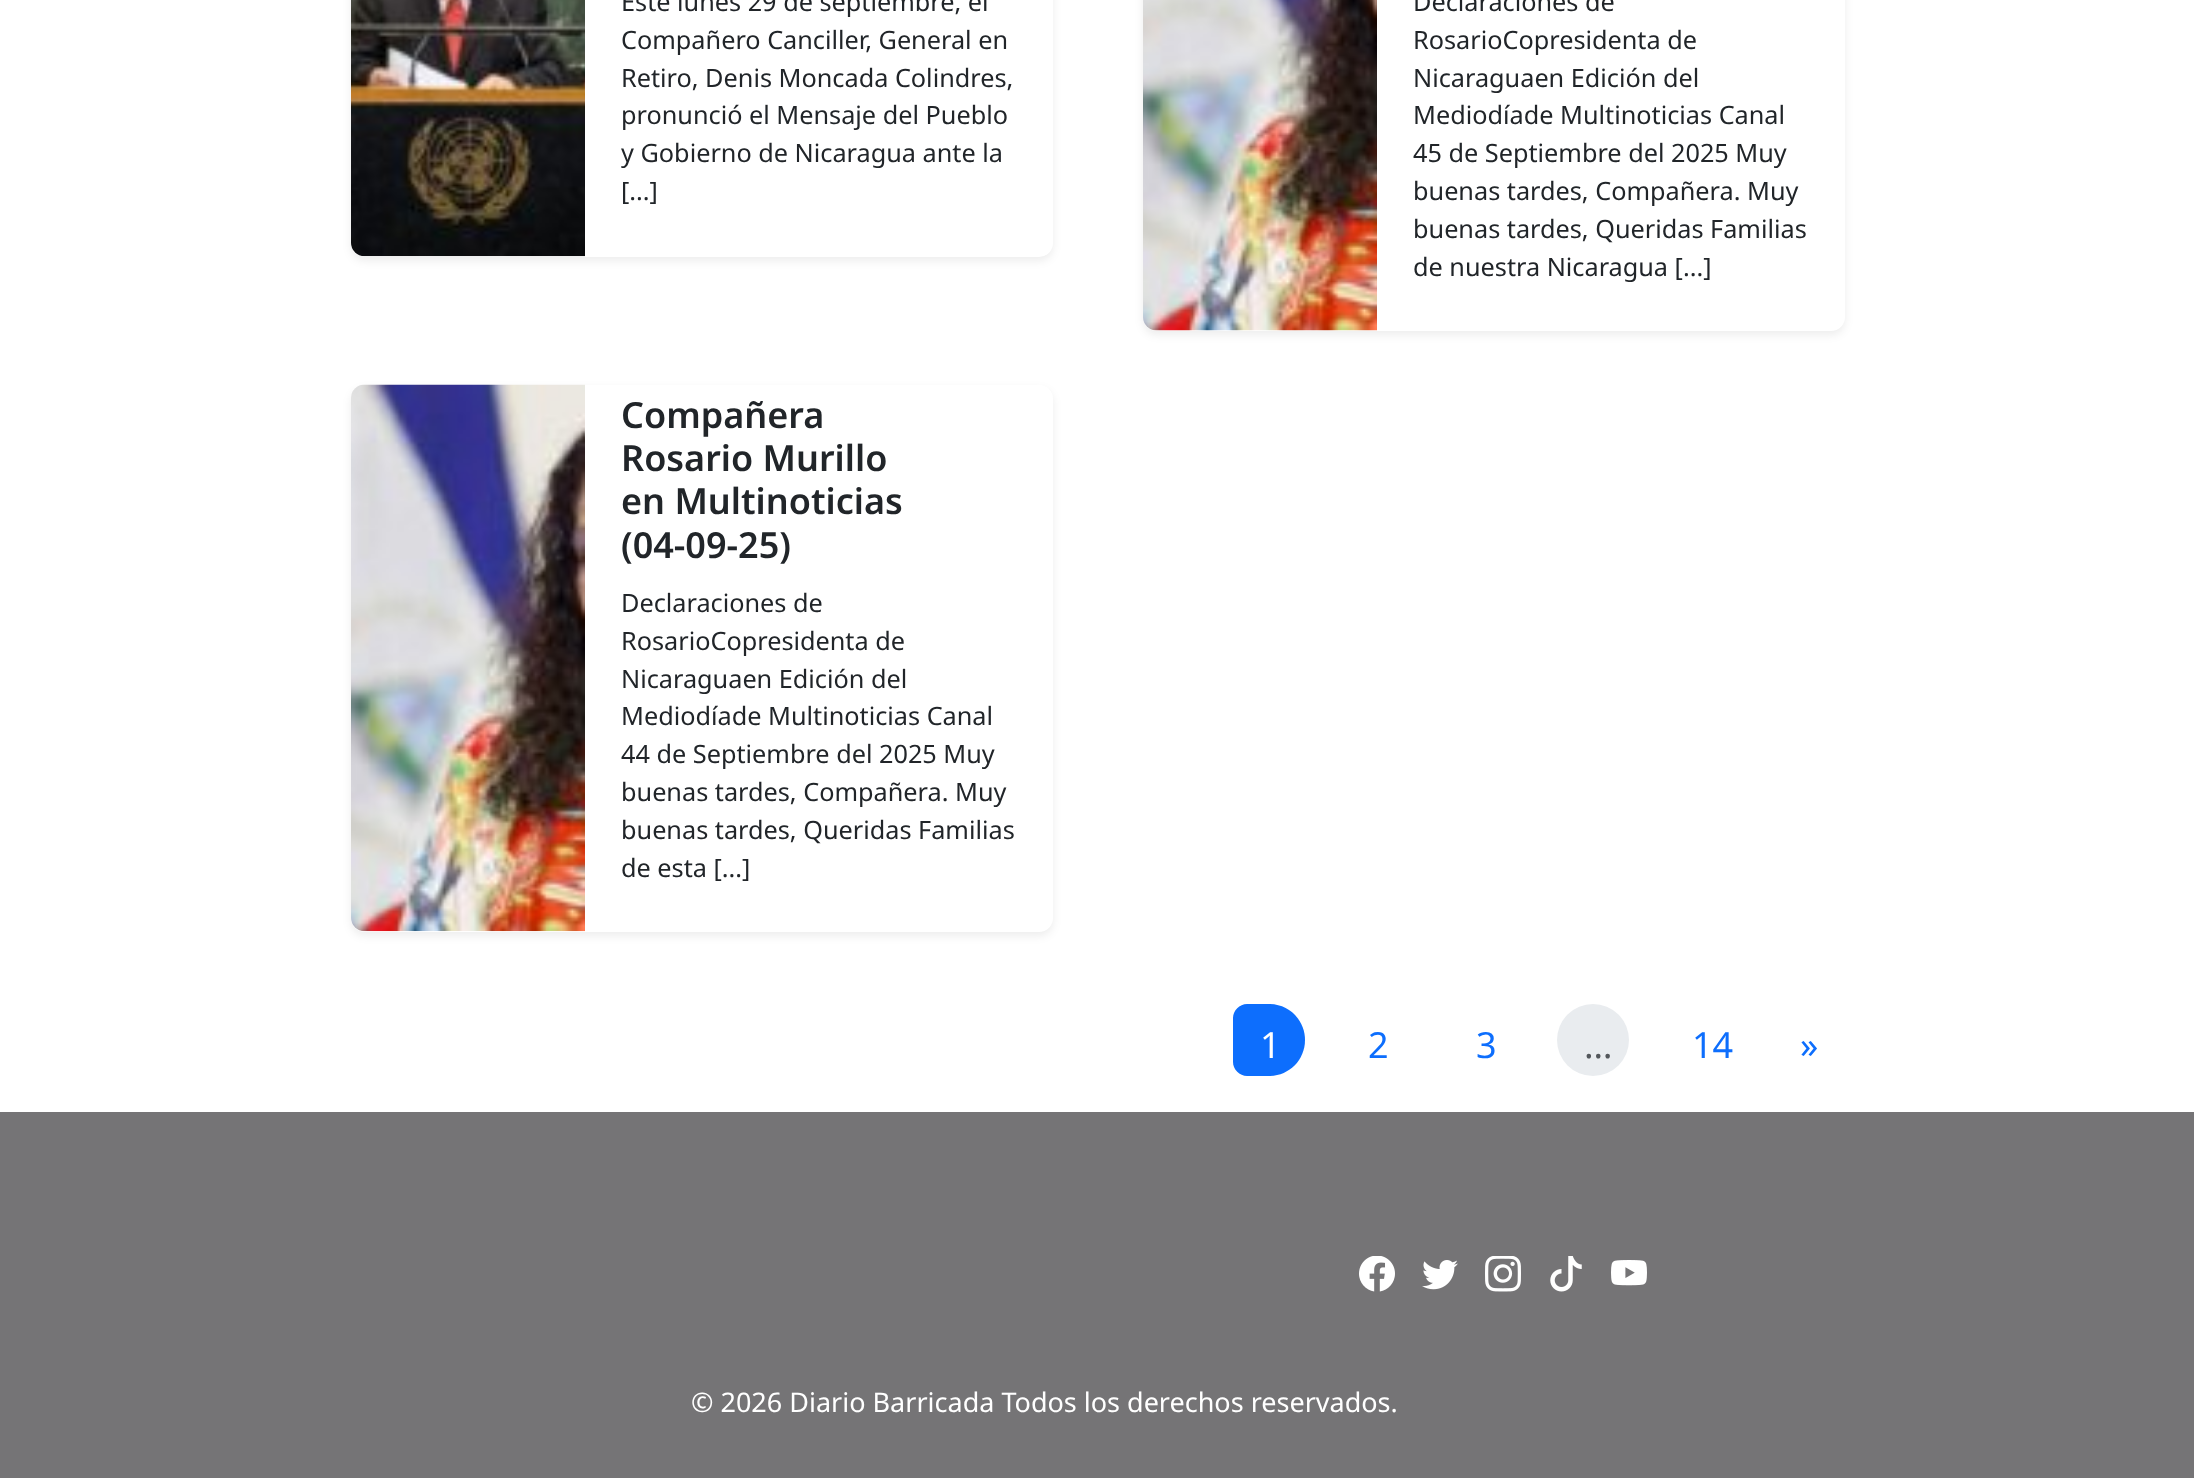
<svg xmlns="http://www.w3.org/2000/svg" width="2194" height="1478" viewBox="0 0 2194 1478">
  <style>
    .t1 { font: 25.25px Noto Sans; fill: #212529; }
    .t2 { font: 600 36px Noto Sans; fill: #212529; }
    .t3 { font: 36px Noto Sans; fill: #fff; }
    .t4 { font: 36px Noto Sans; fill: #0d6efd; }
    .t5 { font: 36px Noto Sans; fill: #53575b; }
    .t6 { font: 27px Noto Sans; fill: #fff; }
  </style>
  <rect width="100%" height="100%" fill="#fff"/>
  <rect x="351" y="-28" width="702" height="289" rx="14" fill="#00000012" filter="blur(4.5px)"/>
  <rect x="351" y="-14" width="702" height="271" rx="14" fill="#fff"/>
  <image x="351" y="0" width="234" height="257" href="images/1.png"/>
  <text x="621" y="11" class="t1">Este lunes 29 de septiembre, el</text>
  <text x="621" y="49" class="t1">Compañero Canciller, General en</text>
  <text x="621" y="87" class="t1">Retiro, Denis Moncada Colindres,</text>
  <text x="621" y="124" class="t1">pronunció el Mensaje del Pueblo</text>
  <text x="621" y="162" class="t1">y Gobierno de Nicaragua ante la</text>
  <text x="621" y="200" class="t1">[...]</text>
  <rect x="1143" y="-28" width="702" height="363" rx="14" fill="#00000012" filter="blur(4.5px)"/>
  <rect x="1143" y="-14" width="702" height="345" rx="14" fill="#fff"/>
  <image x="1143" y="0" width="234" height="331" href="images/2.png"/>
  <text x="1413" y="11" class="t1">Declaraciones de</text>
  <text x="1413" y="49" class="t1">RosarioCopresidenta de</text>
  <text x="1413" y="87" class="t1">Nicaraguaen Edición del</text>
  <text x="1413" y="124" class="t1">Mediodíade Multinoticias Canal</text>
  <text x="1413" y="162" class="t1">45 de Septiembre del 2025 Muy</text>
  <text x="1413" y="200" class="t1">buenas tardes, Compañera. Muy</text>
  <text x="1413" y="238" class="t1">buenas tardes, Queridas Familias</text>
  <text x="1413" y="276" class="t1">de nuestra Nicaragua [...]</text>
  <rect x="351" y="389" width="702" height="547" rx="14" fill="#00000012" filter="blur(4.5px)"/>
  <rect x="351" y="385" width="702" height="547" rx="14" fill="#fff"/>
  <image x="351" y="384" width="234" height="548" href="images/3.png"/>
  <text x="621" y="428" class="t2">Compañera</text>
  <text x="621" y="471" class="t2">Rosario Murillo</text>
  <text x="621" y="514" class="t2">en Multinoticias</text>
  <text x="621" y="558" class="t2">(04-09-25)</text>
  <text x="621" y="612" class="t1">Declaraciones de</text>
  <text x="621" y="650" class="t1">RosarioCopresidenta de</text>
  <text x="621" y="688" class="t1">Nicaraguaen Edición del</text>
  <text x="621" y="725" class="t1">Mediodíade Multinoticias Canal</text>
  <text x="621" y="763" class="t1">44 de Septiembre del 2025 Muy</text>
  <text x="621" y="801" class="t1">buenas tardes, Compañera. Muy</text>
  <text x="621" y="839" class="t1">buenas tardes, Queridas Familias</text>
  <text x="621" y="877" class="t1">de esta [...]</text>
  <path d="M1247 1004H1269C1289 1004 1305 1020 1305 1040C1305 1060 1289 1076 1269 1076H1247C1239.5 1076 1233 1069.5 1233 1062V1018C1233 1010.5 1239.5 1004 1247 1004Z" fill="#0d6efd"/>
  <text x="1260" y="1058" class="t3">1</text>
  <text x="1368" y="1058" class="t4">2</text>
  <text x="1476" y="1058" class="t4">3</text>
  <circle cx="1593" cy="1040" r="36" fill="#e9ecef"/>
  <text x="1584" y="1058" class="t5">…</text>
  <text x="1692" y="1058" class="t4">14</text>
  <text x="1800" y="1058" class="t4">»</text>
  <rect x="0" y="1112" width="2194" height="366" fill="#757476"/>
  <image x="1359" y="1256" width="36" height="36" href="images/4.png"/>
  <image x="1422" y="1260" width="36" height="30" href="images/5.png"/>
  <image x="1485" y="1256" width="36" height="36" href="images/6.png"/>
  <image x="1550" y="1256" width="32" height="36" href="images/7.png"/>
  <image x="1611" y="1260" width="36" height="26" href="images/8.png"/>
  <text x="691" y="1412" class="t6">© 2026 Diario Barricada Todos los derechos reservados.</text>
</svg>
